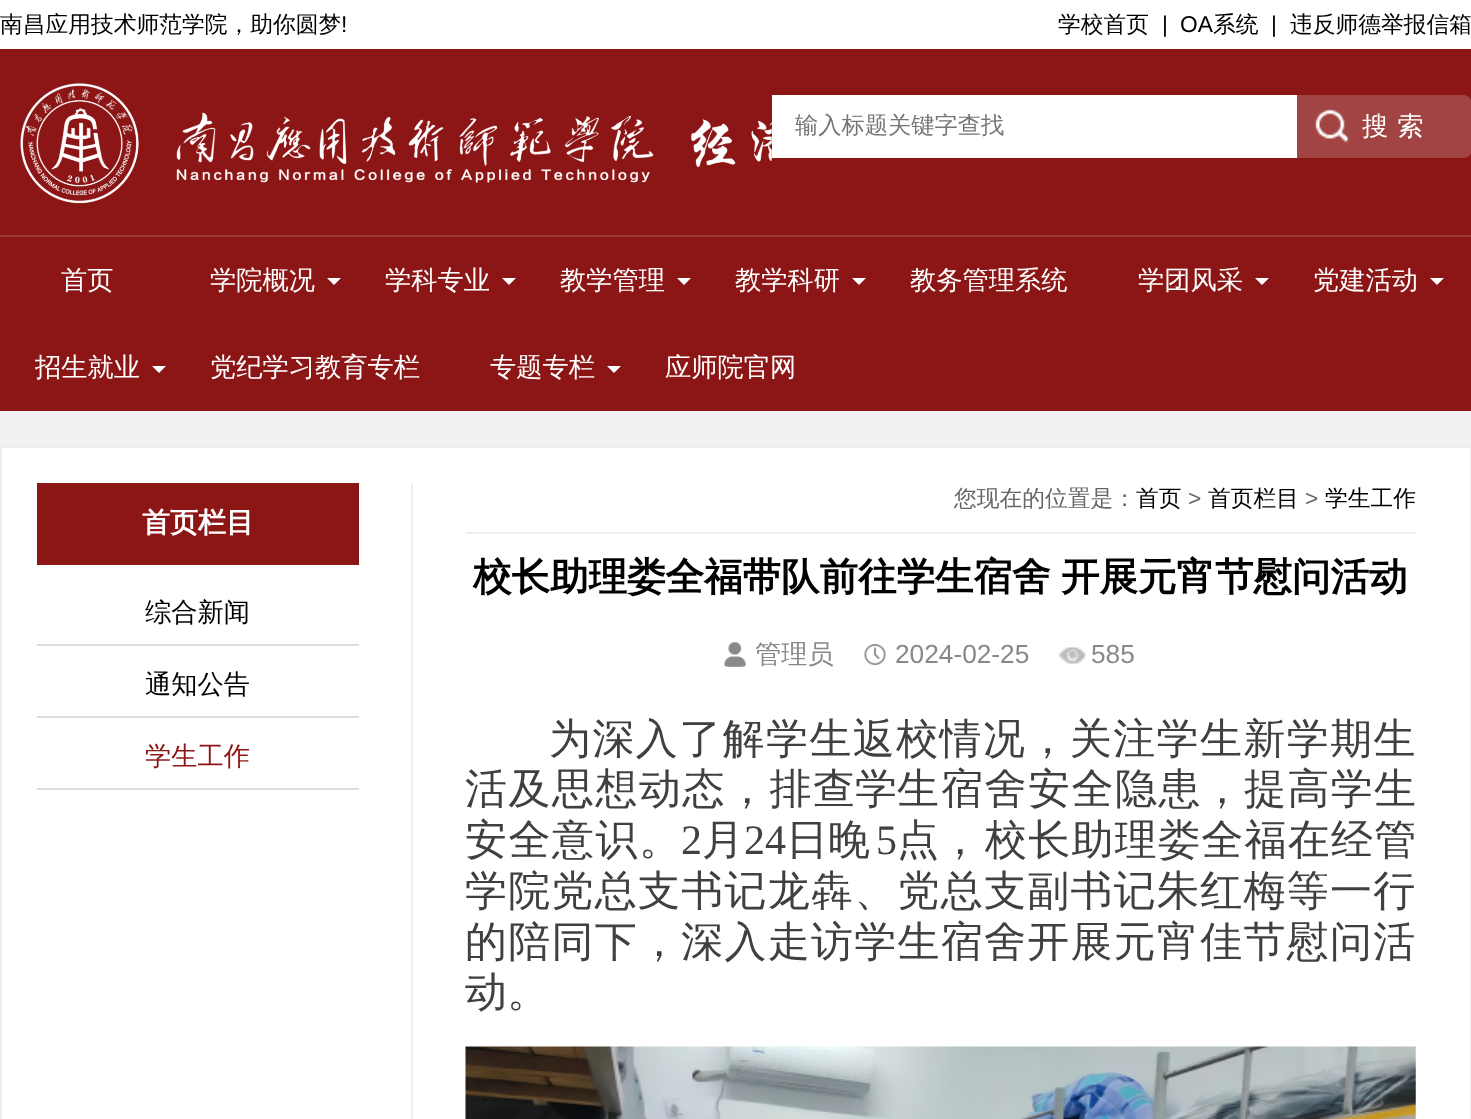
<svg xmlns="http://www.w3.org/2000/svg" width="1471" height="1119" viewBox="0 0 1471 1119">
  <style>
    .t1 { font: 500 22.75px WenQuanYi Zen Hei; fill: #000; }
    .t2 { font: 22.75px Liberation Sans; fill: #000; }
    .t3 { font: 500 23.25px WenQuanYi Zen Hei; fill: #757575; }
    .t4 { font: 500 26.25px WenQuanYi Zen Hei; letter-spacing: 9px; fill: #fff; }
    .t5 { font: 500 26.25px WenQuanYi Zen Hei; fill: #fff; }
    .t6 { font: bold 28px WenQuanYi Zen Hei; fill: #fff; }
    .t7 { font: 500 26.25px WenQuanYi Zen Hei; fill: #000; }
    .t8 { font: 500 26.25px WenQuanYi Zen Hei; fill: #8c1515; }
    .t9 { font: 500 22.75px WenQuanYi Zen Hei; fill: #666; }
    .t10 { font: 22.75px Liberation Sans; fill: #666; }
    .t11 { font: bold 38.5px WenQuanYi Zen Hei; fill: #000; }
    .t12 { font: 500 26.25px WenQuanYi Zen Hei; fill: #888; }
    .t13 { font: 26.25px Liberation Sans; fill: #888; }
    .t14 { font: 500 42px WenQuanYi Zen Hei; letter-spacing: 1.4px; fill: #404040; }
    .t15 { font: 500 42px WenQuanYi Zen Hei; letter-spacing: 1.5px; fill: #404040; }
    .t16 { font: 500 42px WenQuanYi Zen Hei; fill: #404040; }
    .t17 { font: 500 42px WenQuanYi Zen Hei; letter-spacing: 1.25px; fill: #404040; }
    .t18 { font: 42px Liberation Serif; fill: #404040; }
  </style>
  <rect width="100%" height="100%" fill="#f1f1f1"/>
  <rect x="0" y="0" width="1471" height="49" fill="#fff"/>
  <text x="0" y="32" class="t1">南昌应用技术师范学院，助你圆梦</text>
  <text x="341" y="32" class="t2">!</text>
  <text x="1058" y="32" class="t1">学校首页</text>
  <text x="1162" y="32" class="t2">|</text>
  <text x="1180" y="32" class="t2">OA</text>
  <text x="1213" y="32" class="t1">系统</text>
  <text x="1271" y="32" class="t2">|</text>
  <text x="1290" y="32" class="t1">违反师德举报信箱</text>
  <rect x="0" y="49" width="1471" height="362" fill="#8c1515"/>
  <image x="20" y="83" width="752" height="121" href="images/1.png"/>
  <path d="M772 95H1463C1468 95 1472 99 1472 104V149C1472 154 1468 158 1463 158H772Z" fill="#a34444"/>
  <rect x="772" y="95" width="525" height="63" fill="#fff"/>
  <text x="795" y="133" class="t3">输入标题关键字查找</text>
  <image x="1315" y="109" width="35" height="34" href="images/2.png"/>
  <text x="1362" y="135" class="t4">搜索</text>
  <rect x="0" y="235" width="1471" height="2" fill="#9d3838"/>
  <text x="61" y="289" class="t5">首页</text>
  <text x="210" y="289" class="t5">学院概况</text>
  <path d="M327 278H341L334 285Z" fill="#fff"/>
  <text x="385" y="289" class="t5">学科专业</text>
  <path d="M502 278H516L509 285Z" fill="#fff"/>
  <text x="560" y="289" class="t5">教学管理</text>
  <path d="M677 278H691L684 285Z" fill="#fff"/>
  <text x="735" y="289" class="t5">教学科研</text>
  <path d="M852 278H866L859 285Z" fill="#fff"/>
  <text x="910" y="289" class="t5">教务管理系统</text>
  <text x="1138" y="289" class="t5">学团风采</text>
  <path d="M1255 278H1269L1262 285Z" fill="#fff"/>
  <text x="1313" y="289" class="t5">党建活动</text>
  <path d="M1430 278H1444L1437 285Z" fill="#fff"/>
  <text x="35" y="376" class="t5">招生就业</text>
  <path d="M152 366H166L159 373Z" fill="#fff"/>
  <text x="210" y="376" class="t5">党纪学习教育专栏</text>
  <text x="490" y="376" class="t5">专题专栏</text>
  <path d="M607 366H621L614 373Z" fill="#fff"/>
  <text x="665" y="376" class="t5">应师院官网</text>
  <rect x="1" y="447" width="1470" height="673" fill="#fff" stroke="#eee" stroke-width="2"/>
  <rect x="37" y="483" width="322" height="82" fill="#8c1515"/>
  <text x="142" y="532" class="t6">首页栏目</text>
  <rect x="37" y="644" width="322" height="2" fill="#dedede"/>
  <text x="145" y="621" class="t7">综合新闻</text>
  <rect x="37" y="716" width="322" height="2" fill="#dedede"/>
  <text x="145" y="693" class="t7">通知公告</text>
  <rect x="37" y="788" width="322" height="2" fill="#dedede"/>
  <text x="145" y="765" class="t8">学生工作</text>
  <rect x="411" y="483" width="2" height="636" fill="#eee"/>
  <rect x="466" y="532" width="950" height="2" fill="#eee"/>
  <text x="954" y="506" class="t9">您现在的位置是：</text>
  <text x="1136" y="506" class="t1">首页</text>
  <text x="1188" y="506" class="t10">&gt;</text>
  <text x="1208" y="506" class="t1">首页栏目</text>
  <text x="1305" y="506" class="t10">&gt;</text>
  <text x="1325" y="506" class="t1">学生工作</text>
  <text x="473" y="590" word-spacing="-1" class="t11">校长助理娄全福带队前往学生宿舍 开展元宵节慰问活动</text>
  <image x="723" y="642" width="24" height="25" href="images/3.png"/>
  <text x="755" y="663" class="t12">管理员</text>
  <image x="864" y="644" width="22" height="21" href="images/4.png"/>
  <text x="895" y="663" class="t13">2024-02-25</text>
  <image x="1058" y="647" width="28" height="18" href="images/5.png"/>
  <text x="1091" y="663" class="t13">585</text>
  <text x="549" y="753" class="t14">为深入了解学生返校情况，关注学生新学期生</text>
  <text x="465" y="803" class="t15">活及思想动态，排查</text>
  <text x="855" y="803" class="t16">学生</text>
  <text x="941" y="803" class="t15">宿舍安全隐患</text>
  <text x="1201" y="803" class="t17">，提高学生</text>
  <text x="465" y="854" class="t15">安全意识。</text>
  <text x="681" y="854" class="t18">2</text>
  <text x="702" y="854" class="t16">月</text>
  <text x="744" y="854" class="t18">24</text>
  <text x="786" y="854" class="t16">日晚</text>
  <text x="876" y="854" class="t18">5</text>
  <text x="897" y="854" class="t16">点，</text>
  <text x="985" y="854" class="t17">校长助理娄全福在经管</text>
  <text x="465" y="905" class="t17">学院党总支书记龙犇、党总支副书记朱红梅等一行</text>
  <text x="465" y="956" class="t17">的陪同下，深入走访学生宿舍开展元宵佳节慰问活</text>
  <text x="465" y="1006" class="t16">动。</text>
  <image x="465" y="1046" width="951" height="73" href="images/6.png"/>
</svg>
